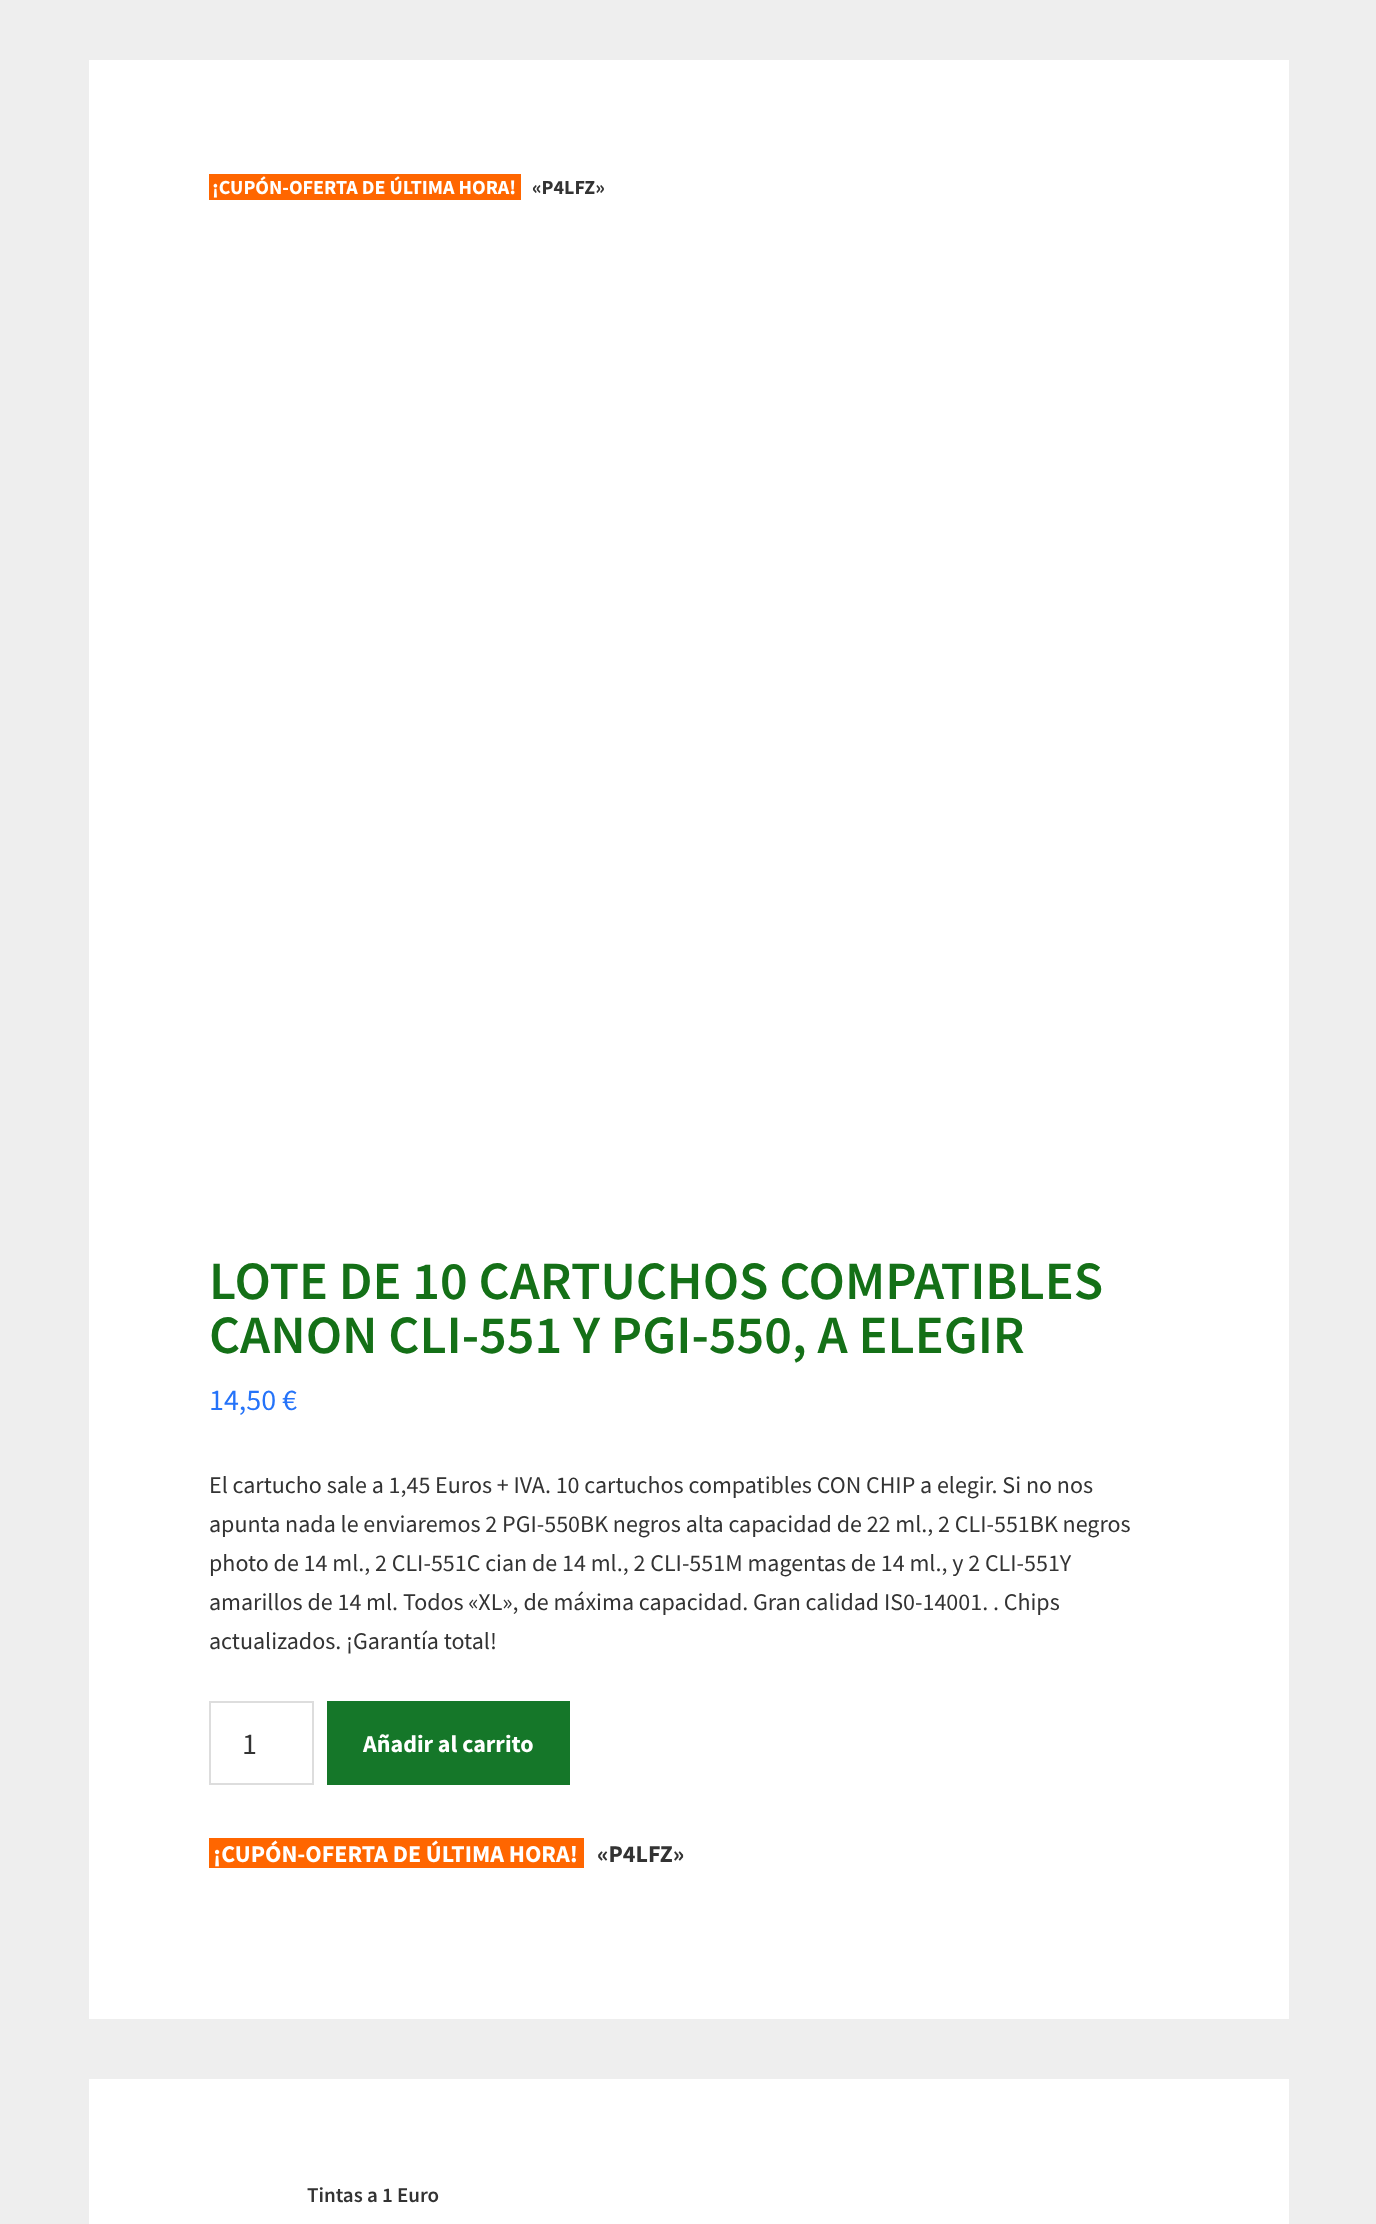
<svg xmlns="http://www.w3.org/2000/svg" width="1376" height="2224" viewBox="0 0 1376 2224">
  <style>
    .t1 { font: bold 20px Source Sans Pro; fill: #fff; }
    .t2 { font: bold 20px Source Sans Pro; fill: #333; }
    .t3 { font: 600 54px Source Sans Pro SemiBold; fill: #147017; }
    .t4 { font: 30px Source Sans Pro; fill: #2573f9; }
    .t5 { font: 24px Source Sans Pro; fill: #333; }
    .t6 { font: 30px Source Sans Pro; fill: #333; }
    .t7 { font: bold 24px Source Sans Pro; fill: #fff; }
    .t8 { font: bold 24px Source Sans Pro; fill: #333; }
    .t9 { font: 600 21px Source Sans Pro SemiBold; fill: #333; }
  </style>
  <rect width="100%" height="100%" fill="#eee"/>
  <rect x="89" y="60" width="1200" height="1959" fill="#fff"/>
  <rect x="209" y="174" width="312" height="26" fill="#f60"/>
  <text x="212" y="194" class="t1">¡CUPÓN-OFERTA DE ÚLTIMA HORA!</text>
  <text x="532" y="194" class="t2">«P4LFZ»</text>
  <text x="209" y="1299" class="t3">LOTE DE 10 CARTUCHOS COMPATIBLES</text>
  <text x="209" y="1353" class="t3">CANON CLI-551 Y PGI-550, A ELEGIR</text>
  <text x="209" y="1410" class="t4">14,50 €</text>
  <text x="209" y="1493" class="t5">El cartucho sale a 1,45 Euros + IVA. 10 cartuchos compatibles CON CHIP a elegir. Si no nos</text>
  <text x="209" y="1532" class="t5">apunta nada le enviaremos 2 PGI-550BK negros alta capacidad de 22 ml., 2 CLI-551BK negros</text>
  <text x="209" y="1571" class="t5">photo de 14 ml., 2 CLI-551C cian de 14 ml., 2 CLI-551M magentas de 14 ml., y 2 CLI-551Y</text>
  <text x="209" y="1610" class="t5">amarillos de 14 ml. Todos «XL», de máxima capacidad. Gran calidad IS0-14001. . Chips</text>
  <text x="209" y="1649" class="t5">actualizados. ¡Garantía total!</text>
  <rect x="210" y="1702" width="103" height="82" fill="none" stroke="#ddd" stroke-width="2"/>
  <text x="242" y="1754" class="t6">1</text>
  <rect x="327" y="1701" width="243" height="84" fill="#157729"/>
  <text x="363" y="1752" class="t7">Añadir al carrito</text>
  <rect x="209" y="1838" width="375" height="30" fill="#f60"/>
  <text x="213" y="1862" class="t7">¡CUPÓN-OFERTA DE ÚLTIMA HORA!</text>
  <text x="597" y="1862" class="t8">«P4LFZ»</text>
  <rect x="89" y="2079" width="1200" height="145" fill="#fff"/>
  <text x="307" y="2202" class="t9">Tintas a 1 Euro</text>
</svg>
